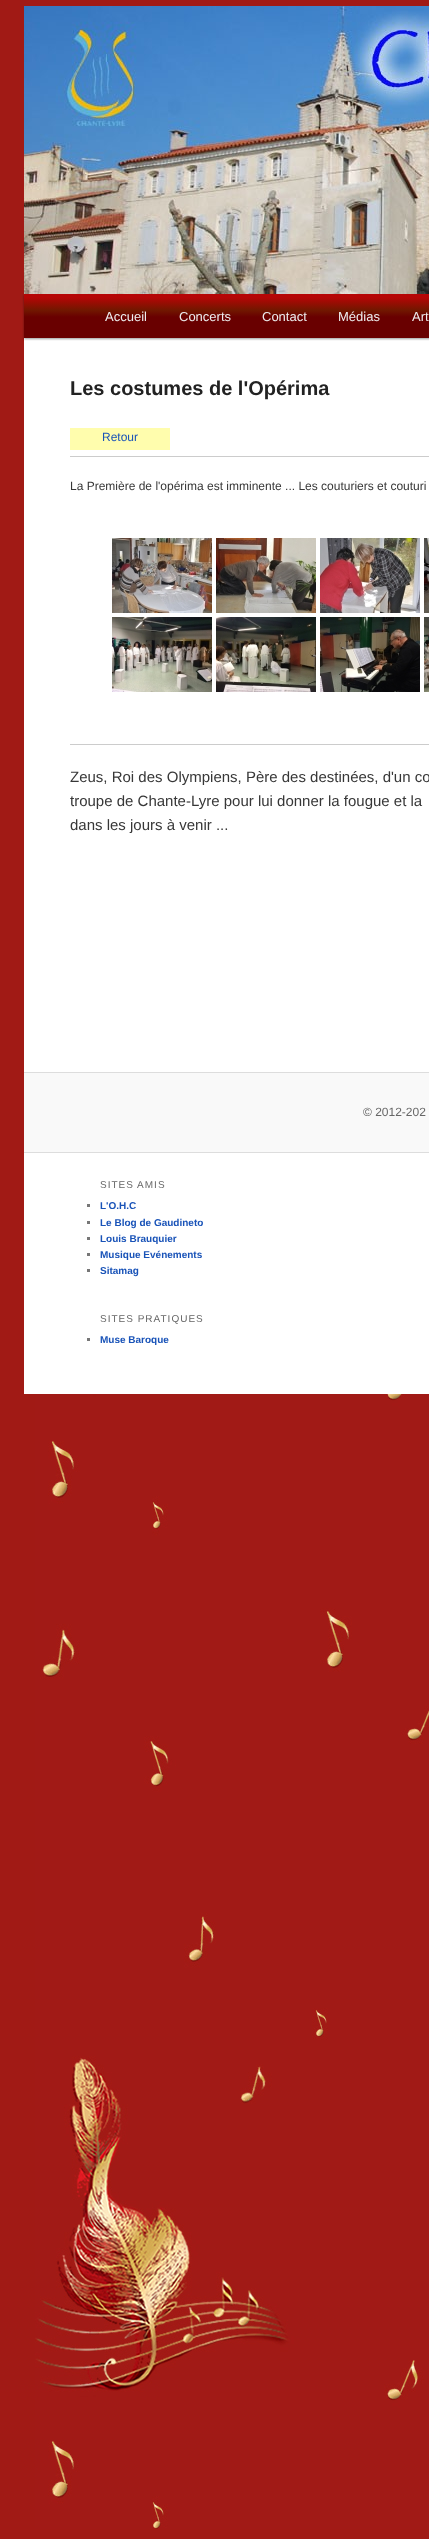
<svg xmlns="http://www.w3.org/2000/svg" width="429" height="2539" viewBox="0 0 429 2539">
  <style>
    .t1 { font: 13px Liberation Sans; fill: #eee; }
    .t2 { font: bold 20px Liberation Sans; fill: #222; }
    .t3 { font: 12px Liberation Sans; fill: #1953b8; }
    .t4 { font: 12px Liberation Sans; fill: #373737; }
    .t5 { font: 15px Liberation Sans; fill: #373737; }
    .t6 { font: 12px Liberation Sans; fill: #666; }
    .t7 { font: 10px Liberation Sans; letter-spacing: 1px; fill: #666; }
    .t8 { font: bold 10px Liberation Sans; fill: #1953b8; }
  </style>
  <defs>
    <linearGradient id="g1" gradientUnits="userSpaceOnUse" x1="24" y1="338" x2="24" y2="294"><stop offset="0.48" stop-color="#690000"/><stop offset="0.63" stop-color="#711700"/><stop offset="0.92" stop-color="#b50606"/></linearGradient>
  </defs>
  <rect width="100%" height="100%" fill="#a11a15"/>
  <image x="35" y="1394" width="394" height="1135" href="images/1.png"/>
  <rect x="24" y="338" width="405" height="1056" fill="#fff"/>
  <rect x="24" y="295" width="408" height="44" fill="#00000066" filter="blur(1px)"/>
  <image x="24" y="6" width="405" height="288" href="images/2.png"/>
  <rect x="24" y="294" width="405" height="44" fill="url(#g1)"/>
  <text x="105" y="321" class="t1">Accueil</text>
  <text x="179" y="321" class="t1">Concerts</text>
  <text x="262" y="321" class="t1">Contact</text>
  <text x="338" y="321" class="t1">Médias</text>
  <text x="412" y="321" class="t1">Art</text>
  <text x="70" y="395" class="t2">Les costumes de l'Opérima</text>
  <rect x="70" y="428" width="100" height="22" fill="#fffdad"/>
  <text x="102" y="441" class="t3">Retour</text>
  <rect x="70" y="456" width="359" height="1" fill="#ccc"/>
  <text x="70" y="490" class="t4">La Première de l'opérima est imminente ... Les couturiers et couturi</text>
  <image x="112" y="538" width="100" height="75" href="images/3.png"/>
  <image x="216" y="538" width="100" height="75" href="images/4.png"/>
  <image x="320" y="538" width="100" height="75" href="images/5.png"/>
  <image x="424" y="538" width="5" height="75" href="images/6.png"/>
  <image x="112" y="617" width="100" height="75" href="images/7.png"/>
  <image x="216" y="617" width="100" height="75" href="images/8.png"/>
  <image x="320" y="617" width="100" height="75" href="images/9.png"/>
  <image x="424" y="617" width="5" height="75" href="images/10.png"/>
  <rect x="70" y="744" width="359" height="1" fill="#ccc"/>
  <text x="70" y="782" class="t5">Zeus, Roi des Olympiens, Père des destinées, d'un co</text>
  <text x="70" y="806" class="t5">troupe de Chante-Lyre pour lui donner la fougue et la</text>
  <text x="70" y="830" class="t5">dans les jours à venir ...</text>
  <rect x="24" y="1073" width="405" height="79" fill="#f9f9f9"/>
  <rect x="24" y="1072" width="405" height="1" fill="#ddd"/>
  <text x="363" y="1116" class="t6">© 2012-202</text>
  <rect x="24" y="1152" width="405" height="1" fill="#ddd"/>
  <text x="100" y="1188" class="t7">SITES AMIS</text>
  <rect x="87" y="1204" width="3" height="3" fill="#777"/>
  <text x="100" y="1209" class="t8">L'O.H.C</text>
  <rect x="87" y="1221" width="3" height="3" fill="#777"/>
  <text x="100" y="1226" class="t8">Le Blog de Gaudineto</text>
  <rect x="87" y="1237" width="3" height="3" fill="#777"/>
  <text x="100" y="1242" class="t8">Louis Brauquier</text>
  <rect x="87" y="1253" width="3" height="3" fill="#777"/>
  <text x="100" y="1258" class="t8">Musique Evénements</text>
  <rect x="87" y="1269" width="3" height="3" fill="#777"/>
  <text x="100" y="1274" class="t8">Sitamag</text>
  <text x="100" y="1322" class="t7">SITES PRATIQUES</text>
  <rect x="87" y="1338" width="3" height="3" fill="#777"/>
  <text x="100" y="1343" class="t8">Muse Baroque</text>
</svg>
